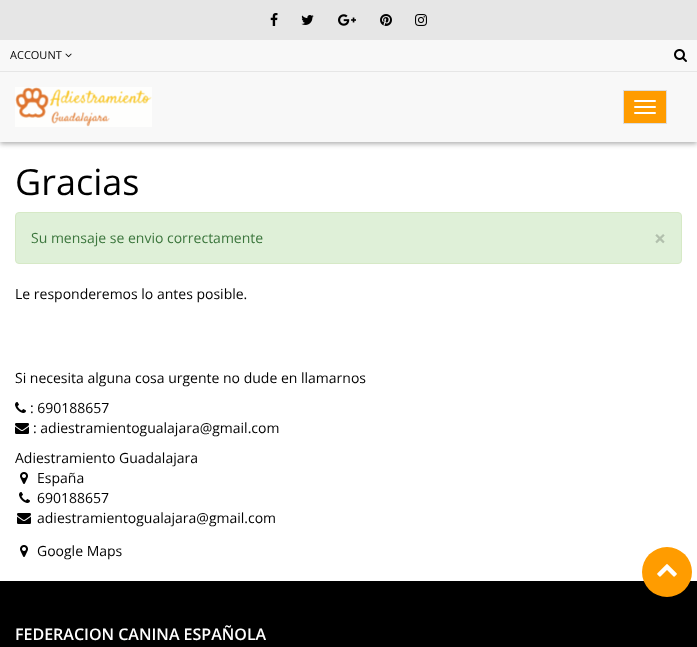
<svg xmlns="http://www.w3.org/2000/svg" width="697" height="647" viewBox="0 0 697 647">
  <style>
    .t1 { font: 11px Open Sans; fill: #000; }
    .t2 { font: 36px Open Sans; fill: #000; }
    .t3 { font: 14px Open Sans; fill: #3c763d; }
    .t4 { font: bold 21px Open Sans; fill: #b2c0ad; }
    .t5 { font: 14px Open Sans; fill: #000; }
    .t6 { font: 600 16px Open Sans; fill: #fff; }
  </style>
  <rect width="100%" height="100%" fill="#fff"/>
  <rect x="0" y="2" width="697" height="142" fill="#0000004f" filter="blur(2.5px)"/>
  <rect x="0" y="40" width="697" height="102" fill="#f8f8f8"/>
  <rect x="0" y="71" width="697" height="1" fill="#e6e6e6"/>
  <rect x="0" y="0" width="697" height="40" fill="#e6e6e6"/>
  <image x="270" y="13" width="8" height="13" href="images/1.png"/>
  <image x="301" y="15" width="13" height="10" href="images/2.png"/>
  <image x="338" y="14" width="18" height="12" href="images/3.png"/>
  <image x="380" y="14" width="12" height="12" href="images/4.png"/>
  <image x="415" y="14" width="12" height="12" href="images/5.png"/>
  <text x="10" y="59" class="t1">ACCOUNT</text>
  <image x="65" y="53" width="7" height="5" href="images/6.png"/>
  <image x="674" y="49" width="13" height="13" href="images/7.png"/>
  <image x="15" y="87" width="137" height="40" href="images/8.png"/>
  <rect x="623.5" y="90.5" width="43" height="33" fill="#ff9c00" stroke="#ddd"/>
  <rect x="634" y="100" width="22" height="2" rx="1" fill="#fff"/>
  <rect x="634" y="106" width="22" height="2" rx="1" fill="#fff"/>
  <rect x="634" y="112" width="22" height="2" rx="1" fill="#fff"/>
  <text x="15" y="195" class="t2">Gracias</text>
  <rect x="15.5" y="212.5" width="666" height="51" rx="3.5" fill="#dff0d8" stroke="#d6e9c6"/>
  <text x="31" y="243" class="t3">Su mensaje se envio correctamente</text>
  <text x="654" y="246" class="t4">×</text>
  <text x="15" y="299" class="t5">Le responderemos lo antes posible.</text>
  <text x="15" y="383" class="t5">Si necesita alguna cosa urgente no dude en llamarnos</text>
  <image x="15" y="402" width="11" height="11" href="images/9.png"/>
  <text x="30" y="413" class="t5">: 690188657</text>
  <image x="15" y="423" width="14" height="11" href="images/10.png"/>
  <text x="33" y="433" class="t5">: adiestramientogualajara@gmail.com</text>
  <text x="15" y="463" class="t5">Adiestramiento Guadalajara</text>
  <image x="20" y="472" width="8" height="12" href="images/11.png"/>
  <text x="37" y="483" class="t5">España</text>
  <image x="19" y="492" width="11" height="11" href="images/9.png"/>
  <text x="37" y="503" class="t5">690188657</text>
  <image x="17" y="513" width="14" height="11" href="images/10.png"/>
  <text x="37" y="523" class="t5">adiestramientogualajara@gmail.com</text>
  <image x="20" y="545" width="8" height="12" href="images/11.png"/>
  <text x="37" y="556" class="t5">Google Maps</text>
  <rect x="0" y="581" width="697" height="66" fill="#000"/>
  <circle cx="667" cy="572" r="25" fill="#ff9c00"/>
  <image x="657" y="564" width="20" height="13" href="images/12.png"/>
  <text x="15" y="640" class="t6">FEDERACION CANINA ESPAÑOLA</text>
</svg>
